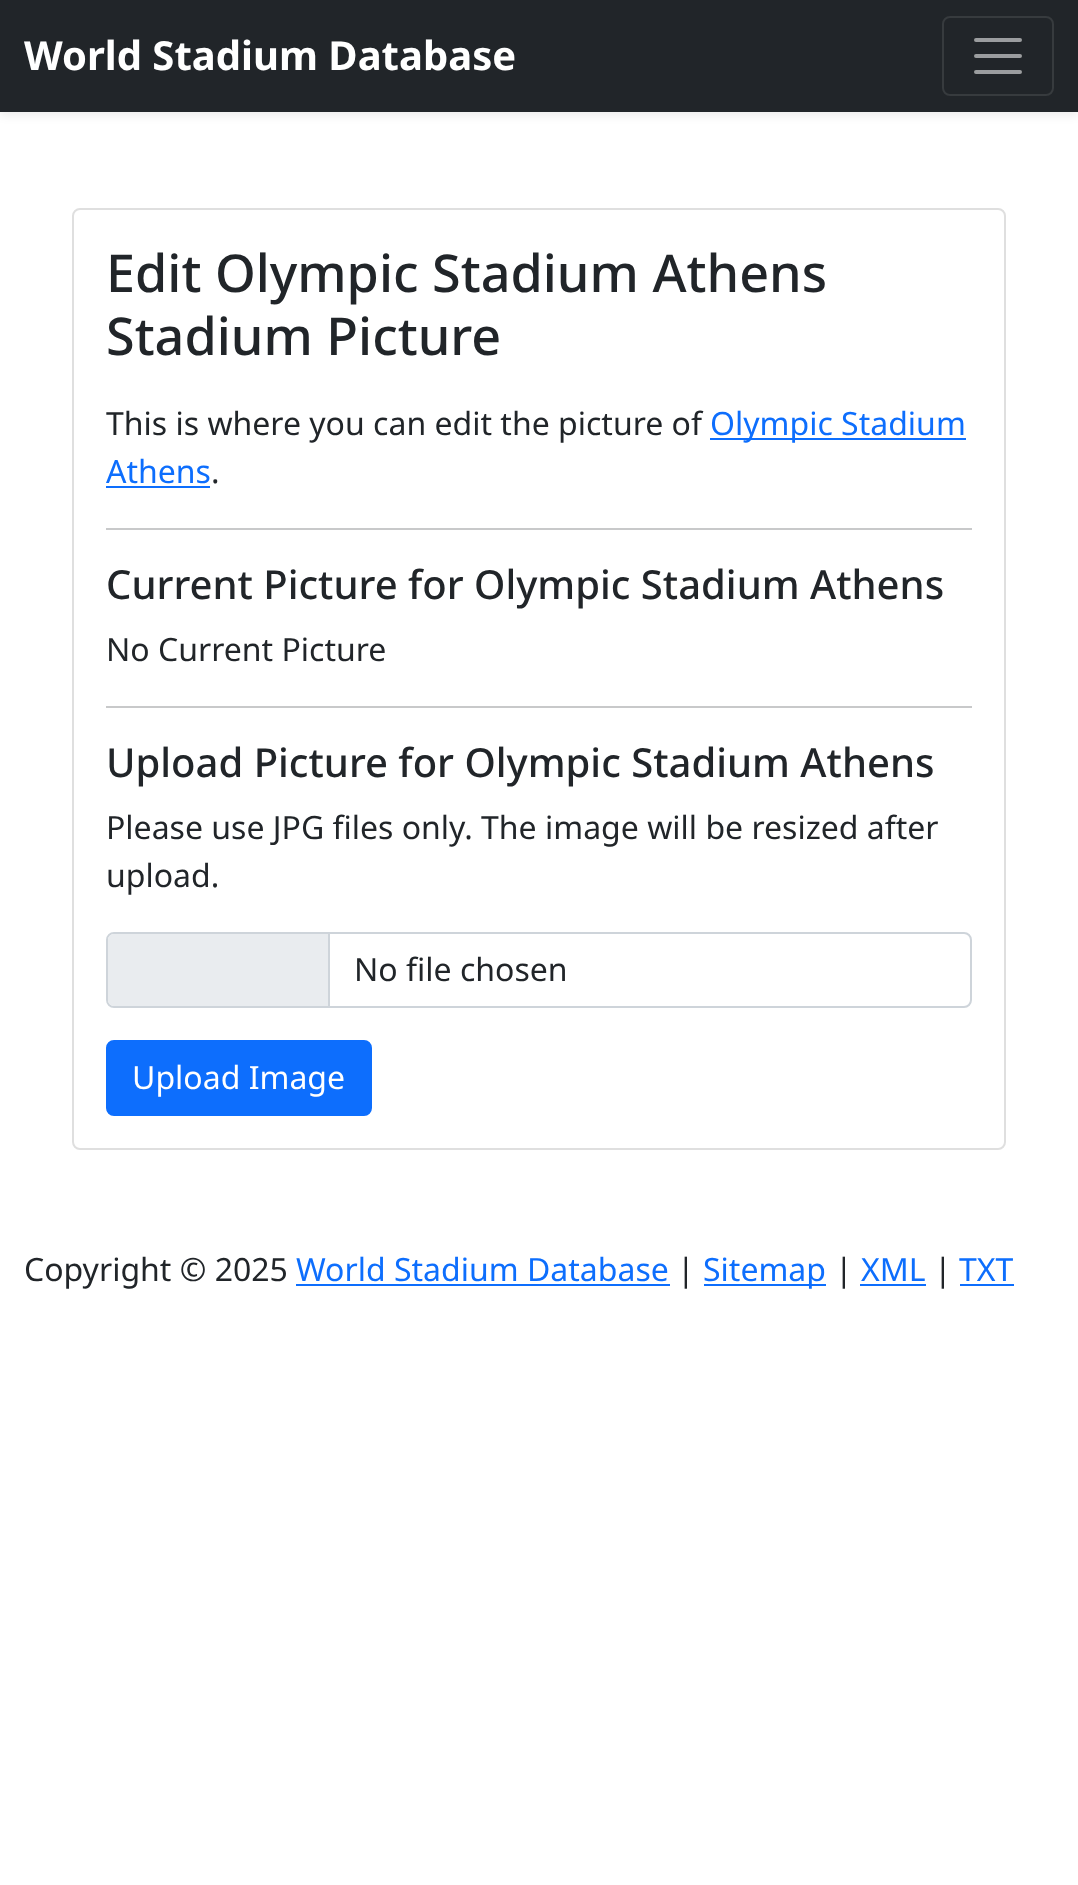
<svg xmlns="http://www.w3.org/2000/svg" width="1078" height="1885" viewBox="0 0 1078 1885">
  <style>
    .t1 { font: bold 40px Noto Sans; fill: #fff; }
    .t2 { font: 500 52.1px Noto Sans; fill: #212529; }
    .t3 { font: 32px Noto Sans; fill: #212529; }
    .t4 { font: 32px Noto Sans; fill: #0d6efd; }
    .t5 { font: 500 40px Noto Sans; fill: #212529; }
    .t6 { font: 32px Noto Sans; fill: #fff; }
  </style>
  <rect width="100%" height="100%" fill="#fff"/>
  <rect x="0" y="4" width="1078" height="112" fill="#00000012" filter="blur(4px)"/>
  <rect x="0" y="0" width="1078" height="112" fill="#212529"/>
  <text x="24" y="70" class="t1">World Stadium Database</text>
  <rect x="943" y="17" width="110" height="78" rx="7" fill="none" stroke="#373b3e" stroke-width="2"/>
  <path d="M976 40H1020M976 56H1020M976 72H1020" fill="none" stroke="#9b9d9f" stroke-width="4" stroke-linecap="round"/>
  <rect x="73" y="209" width="932" height="940" rx="7" fill="none" stroke="#dfdfdf" stroke-width="2"/>
  <text x="106" y="292" class="t2">Edit Olympic Stadium Athens</text>
  <text x="106" y="355" class="t2">Stadium Picture</text>
  <text x="106" y="435" class="t3">This is where you can edit the picture of</text>
  <rect x="710" y="438" width="256" height="2" fill="#0d6efd"/>
  <text x="710" y="435" class="t4">Olympic Stadium</text>
  <text x="106" y="483" class="t4">Athens</text>
  <rect x="106" y="486" width="104" height="2" fill="#0d6efd"/>
  <text x="211" y="483" class="t3">.</text>
  <rect x="106" y="528" width="866" height="2" fill="#c8c9ca"/>
  <text x="106" y="599" class="t5">Current Picture for Olympic Stadium Athens</text>
  <text x="106" y="661" class="t3">No Current Picture</text>
  <rect x="106" y="706" width="866" height="2" fill="#c8c9ca"/>
  <text x="106" y="777" class="t5">Upload Picture for Olympic Stadium Athens</text>
  <text x="106" y="839" class="t3">Please use JPG files only. The image will be resized after</text>
  <text x="106" y="887" class="t3">upload.</text>
  <rect x="107" y="933" width="864" height="74" rx="7" fill="none" stroke="#ced4da" stroke-width="2"/>
  <path d="M114 934H328V1006H114C110.5 1006 108 1003.5 108 1000V940C108 936.5 110.5 934 114 934Z" fill="#e9ecef"/>
  <rect x="328" y="934" width="2" height="72" fill="#ced4da"/>
  <text x="354" y="981" class="t3">No file chosen</text>
  <rect x="107" y="1041" width="264" height="74" rx="7" fill="#0d6efd" stroke="#0d6efd" stroke-width="2"/>
  <text x="132" y="1089" class="t6">Upload Image</text>
  <text x="24" y="1281" class="t3">Copyright © 2025</text>
  <text x="296" y="1281" class="t4">World Stadium Database</text>
  <rect x="296" y="1284" width="374" height="2" fill="#0d6efd"/>
  <text x="677" y="1281" class="t3">|</text>
  <rect x="704" y="1284" width="122" height="2" fill="#0d6efd"/>
  <text x="703" y="1281" class="t4">Sitemap</text>
  <text x="835" y="1281" class="t3">|</text>
  <text x="861" y="1281" class="t4">XML</text>
  <rect x="860" y="1284" width="66" height="2" fill="#0d6efd"/>
  <text x="934" y="1281" class="t3">|</text>
  <text x="959" y="1281" class="t4">TXT</text>
  <rect x="960" y="1284" width="54" height="2" fill="#0d6efd"/>
</svg>
